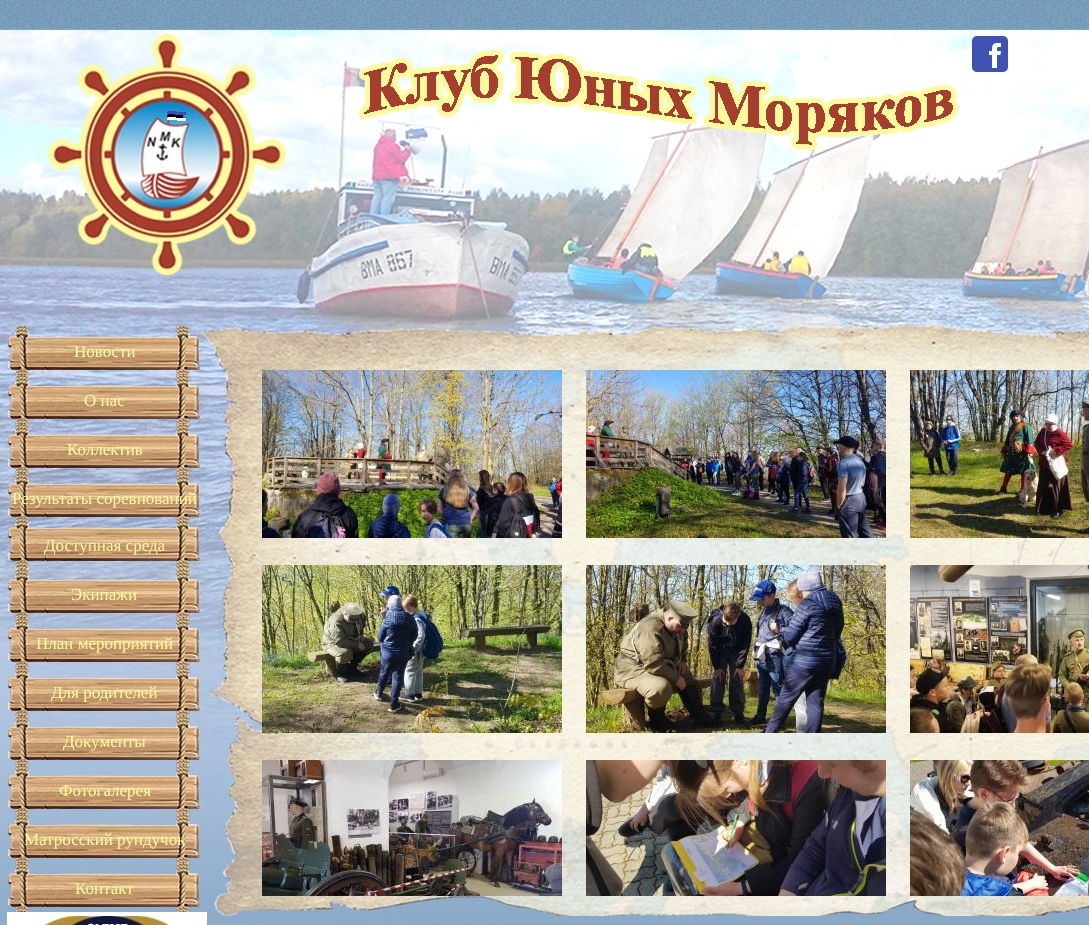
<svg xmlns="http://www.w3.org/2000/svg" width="1089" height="925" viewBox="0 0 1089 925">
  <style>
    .t1 { font: 17px Liberation Serif; fill: #fefb9c; }
  </style>
  <rect width="100%" height="100%" fill="#fff"/>
  <image x="0" y="0" width="1089" height="30" href="images/1.png"/>
  <rect x="0" y="31" width="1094" height="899" fill="#ddd" filter="blur(1.5px)"/>
  <image x="0" y="30" width="1089" height="895" href="images/2.png"/>
  <image x="359" y="50" width="599" height="100" href="images/3.png"/>
  <image x="972" y="36" width="36" height="36" href="images/4.png"/>
  <image x="8" y="326" width="193" height="49" href="images/5.png"/>
  <text x="74" y="357" class="t1">Новости</text>
  <image x="8" y="375" width="193" height="49" href="images/6.png"/>
  <text x="84" y="406" class="t1">О нас</text>
  <image x="8" y="424" width="193" height="49" href="images/7.png"/>
  <text x="67" y="455" class="t1">Коллектив</text>
  <image x="8" y="473" width="193" height="96" href="images/8.png"/>
  <text x="12" y="504" class="t1">Результаты соревнований</text>
  <text x="44" y="551" class="t1">Доступная среда</text>
  <image x="8" y="569" width="193" height="49" href="images/9.png"/>
  <text x="71" y="600" class="t1">Экипажи</text>
  <image x="8" y="618" width="193" height="49" href="images/10.png"/>
  <text x="36" y="649" class="t1">План мероприятий</text>
  <image x="8" y="667" width="193" height="49" href="images/11.png"/>
  <text x="51" y="698" class="t1">Для родителей</text>
  <image x="8" y="716" width="193" height="49" href="images/12.png"/>
  <text x="63" y="747" class="t1">Документы</text>
  <image x="8" y="765" width="193" height="49" href="images/13.png"/>
  <text x="59" y="796" class="t1">Фотогалерея</text>
  <image x="8" y="814" width="193" height="49" href="images/14.png"/>
  <text x="24" y="845" class="t1">Матросский рундучок</text>
  <image x="8" y="863" width="193" height="49" href="images/15.png"/>
  <text x="75" y="894" class="t1">Контакт</text>
  <image x="7" y="912" width="200" height="13" href="images/16.png"/>
  <image x="202" y="324" width="887" height="592" href="images/17.png"/>
  <image x="262" y="370" width="300" height="168" href="images/18.png"/>
  <image x="586" y="370" width="300" height="168" href="images/19.png"/>
  <image x="910" y="370" width="179" height="168" href="images/20.png"/>
  <image x="262" y="565" width="300" height="168" href="images/21.png"/>
  <image x="586" y="565" width="300" height="168" href="images/22.png"/>
  <image x="910" y="565" width="179" height="168" href="images/23.png"/>
  <image x="262" y="760" width="300" height="136" href="images/24.png"/>
  <image x="586" y="760" width="300" height="136" href="images/25.png"/>
  <image x="910" y="760" width="179" height="136" href="images/26.png"/>
</svg>
